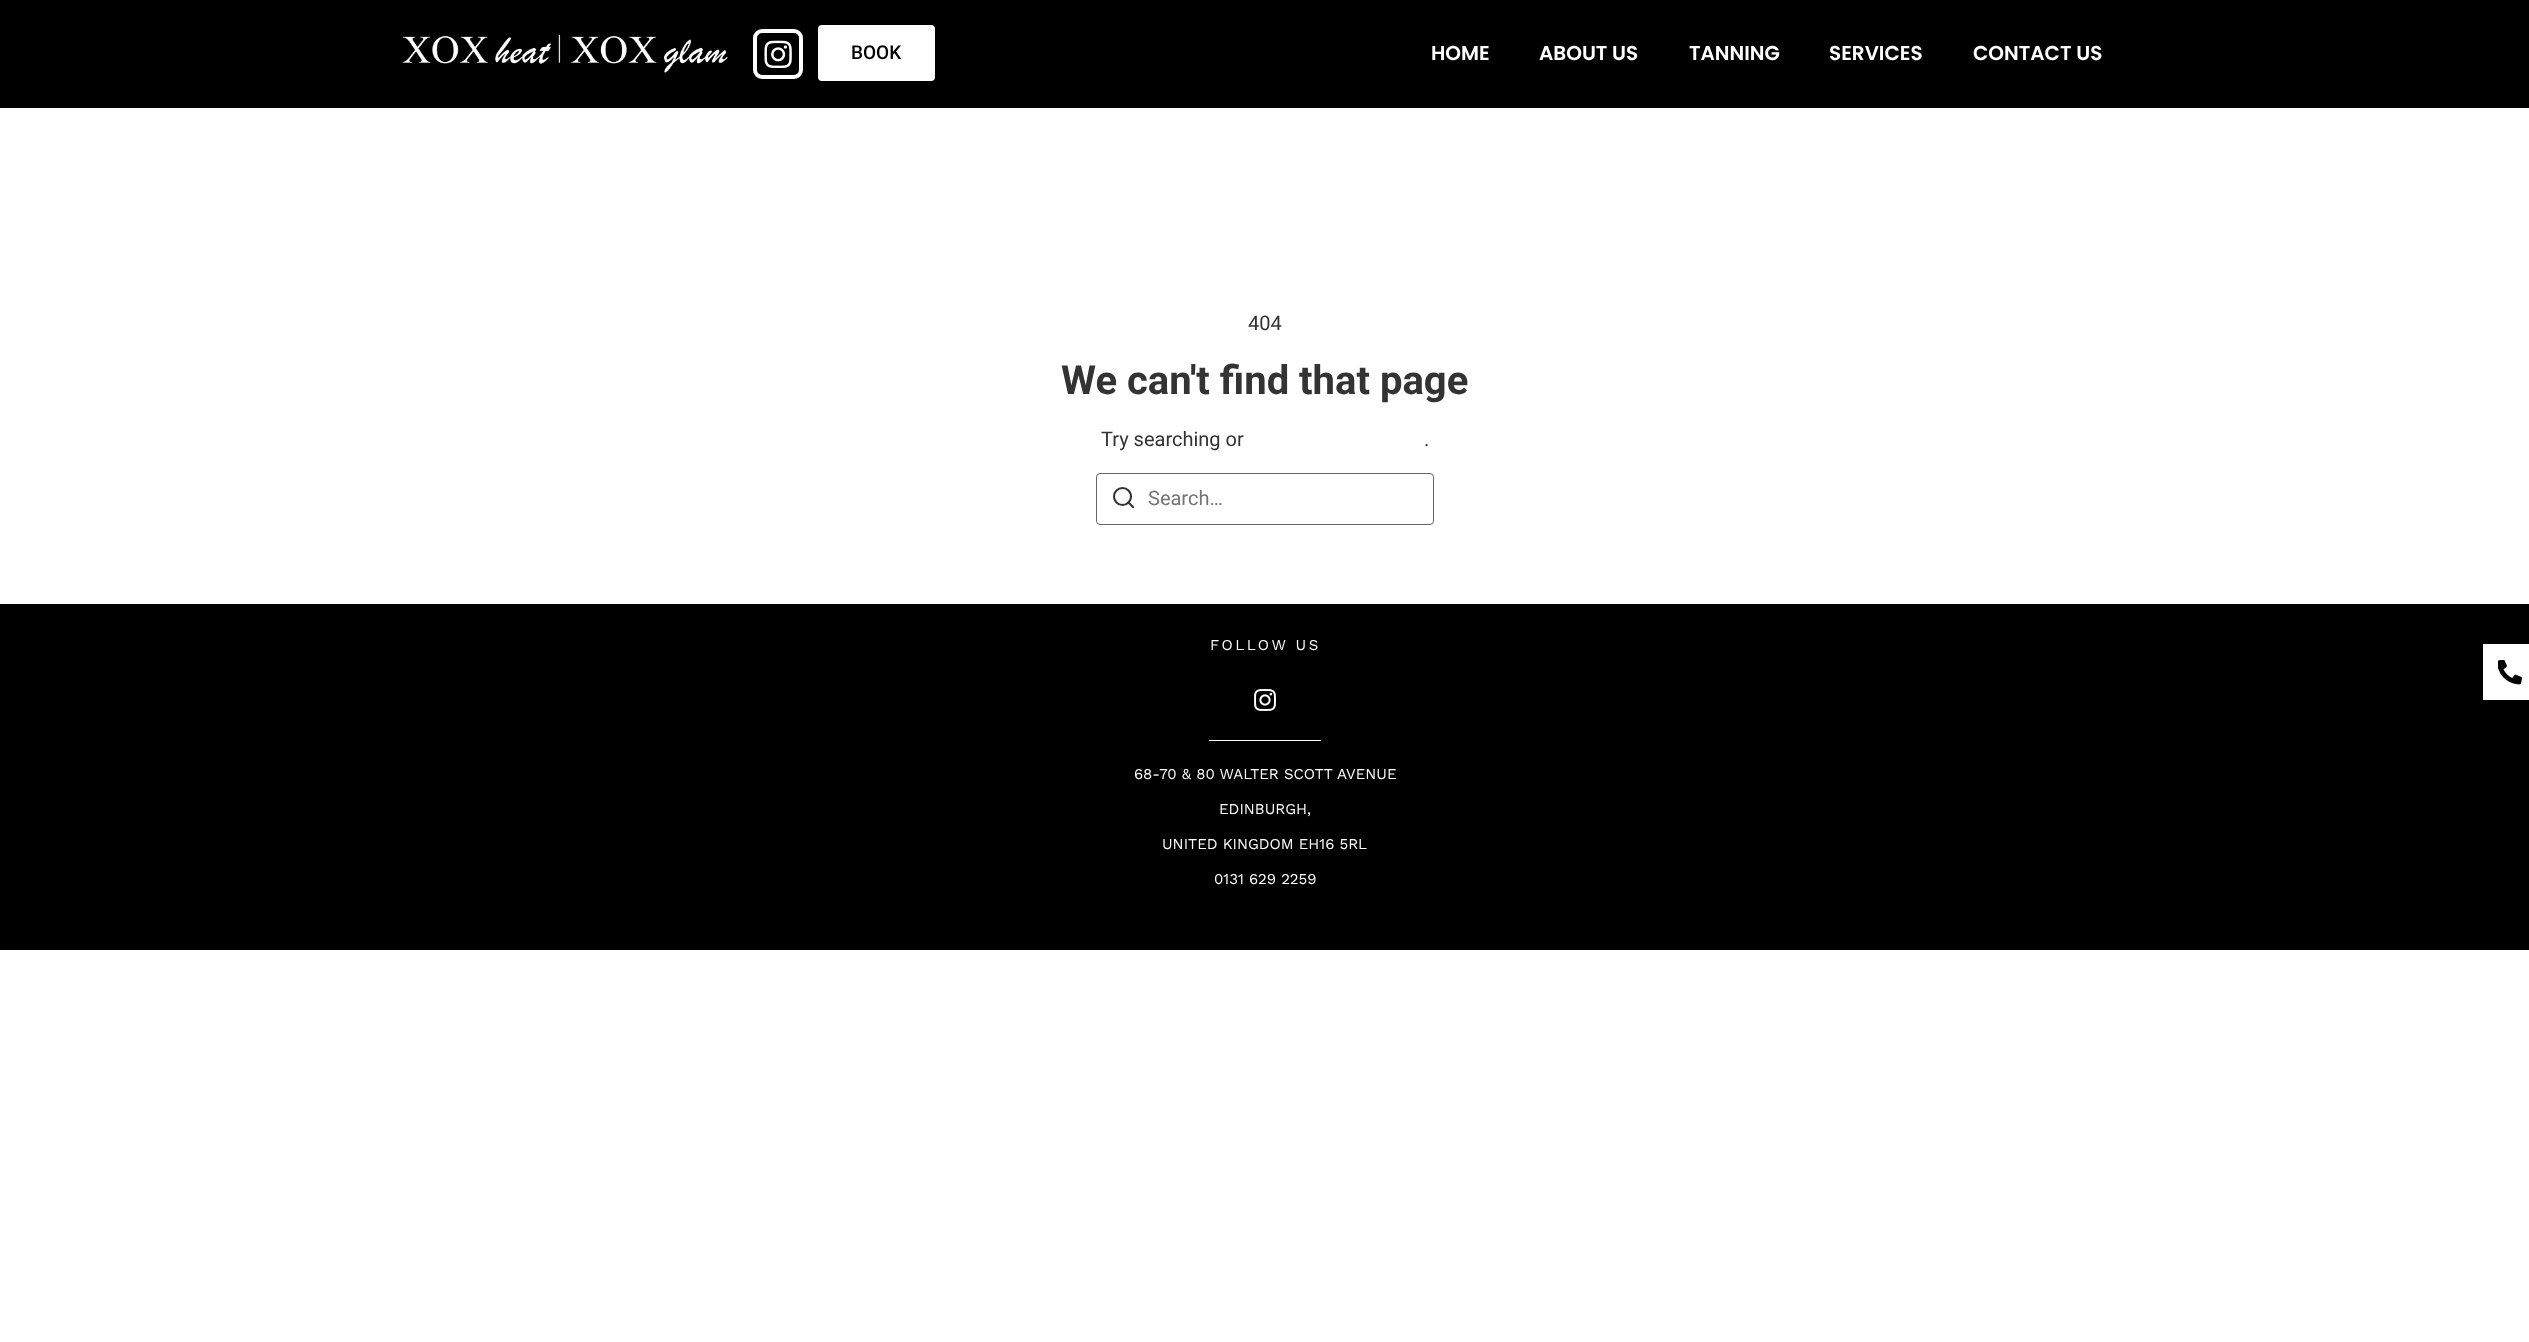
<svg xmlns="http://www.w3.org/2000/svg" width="2529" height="1342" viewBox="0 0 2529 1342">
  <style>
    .t1 { font: 500 19px Roboto; fill: #000; }
    .t2 { font: 600 20px Poppins; fill: #fff; }
    .t3 { font: 20px Roboto; fill: #333; }
    .t4 { font: bold 40px Roboto; fill: #333; }
    .t5 { font: 20px Roboto; fill: #757575; }
    .t6 { font: 15px Work Sans; letter-spacing: 2.5px; fill: #fff; }
    .t7 { font: 15px Work Sans; fill: #fff; }
  </style>
  <rect width="100%" height="100%" fill="#fff"/>
  <rect x="0" y="0" width="2529" height="108" fill="#000"/>
  <image x="402" y="35" width="326" height="38" href="images/1.png"/>
  <rect x="755" y="31" width="46" height="46" rx="7" fill="none" stroke="#fff" stroke-width="4"/>
  <image x="764" y="40" width="28" height="29" href="images/2.png"/>
  <rect x="820" y="27" width="113" height="52" rx="2" fill="#fff" stroke="#fff" stroke-width="4"/>
  <text x="851" y="59" class="t1">BOOK</text>
  <text x="1431" y="60" class="t2">HOME</text>
  <text x="1539" y="60" class="t2">ABOUT US</text>
  <text x="1689" y="60" class="t2">TANNING</text>
  <text x="1829" y="60" class="t2">SERVICES</text>
  <text x="1973" y="60" class="t2">CONTACT US</text>
  <text x="1248" y="330" class="t3">404</text>
  <text x="1061" y="394" class="t4">We can't find that page</text>
  <text x="1101" y="446" class="t3">Try searching or</text>
  <text x="1424" y="446" class="t3">.</text>
  <rect x="1096.5" y="473.5" width="337" height="51" rx="3.5" fill="none" stroke="#666"/>
  <circle cx="1122.5" cy="496.5" r="8.5" fill="none" stroke="#333" stroke-width="2.1"/>
  <path d="M1133 507L1128.5 502.5" fill="none" stroke="#333" stroke-width="2.1" stroke-linecap="round" stroke-linejoin="round"/>
  <text x="1148" y="505" class="t5">Search…</text>
  <rect x="0" y="604" width="2529" height="346" fill="#000"/>
  <text x="1210" y="650" class="t6">FOLLOW US</text>
  <image x="1254" y="689" width="22" height="22" href="images/3.png"/>
  <rect x="1209" y="740" width="112" height="1" fill="#fff"/>
  <text x="1134" y="779" class="t7">68-70 &amp; 80 WALTER SCOTT AVENUE</text>
  <text x="1219" y="814" class="t7">EDINBURGH,</text>
  <text x="1162" y="849" class="t7">UNITED KINGDOM EH16 5RL</text>
  <text x="1214" y="884" class="t7">0131 629 2259</text>
  <rect x="2483" y="644" width="46" height="56" fill="#fff"/>
  <image x="2498" y="660" width="25" height="25" href="images/4.png"/>
</svg>
